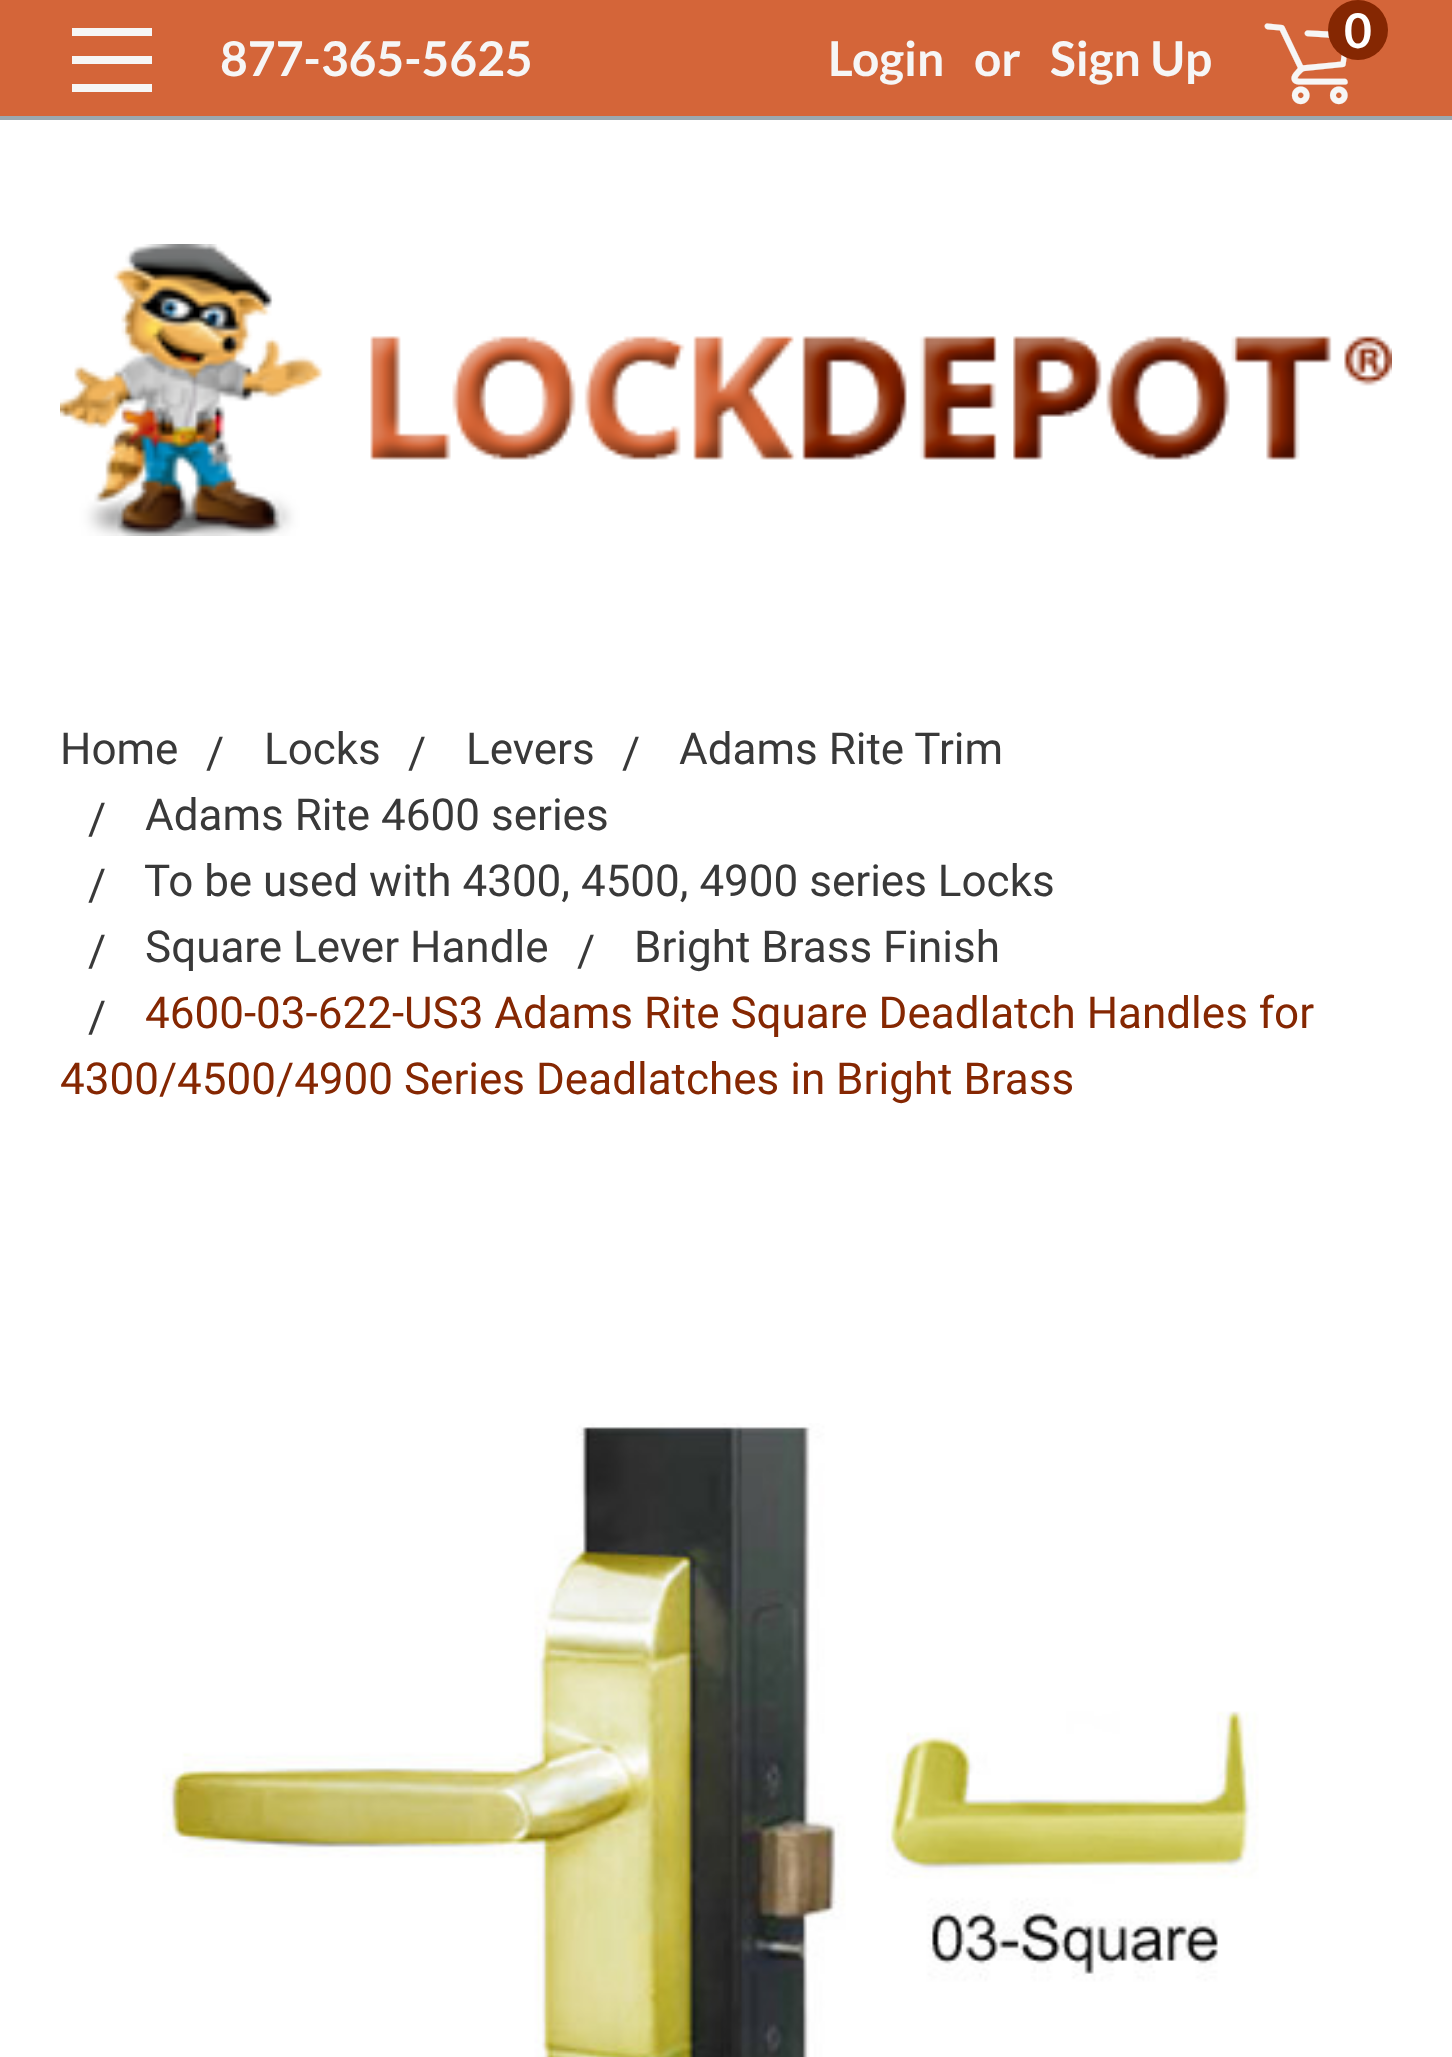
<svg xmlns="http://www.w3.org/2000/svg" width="1452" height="2057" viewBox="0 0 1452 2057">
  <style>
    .t1 { font: bold 48px Lato; fill: #f6f6f6; }
    .t2 { font: bold 48px Lato; fill: #fff; }
    .t3 { font: 44px Roboto; fill: #393939; }
    .t4 { font: 44px Roboto; fill: #852702; }
  </style>
  <rect width="100%" height="100%" fill="#fff"/>
  <rect x="0" y="0" width="1452" height="116" fill="#d46539"/>
  <rect x="0" y="116" width="1452" height="4" fill="#9ba8b0"/>
  <rect x="72" y="56" width="80" height="8" fill="#f6f6f6"/>
  <rect x="72" y="28" width="80" height="8" fill="#f6f6f6"/>
  <rect x="72" y="84" width="80" height="8" fill="#f6f6f6"/>
  <text x="220" y="76" class="t1">877-365-5625</text>
  <image x="1264" y="23" width="84" height="82" href="images/1.png"/>
  <circle cx="1358" cy="30" r="30" fill="#852702"/>
  <text x="1344" y="48" class="t2">0</text>
  <text x="828" y="76" class="t1">Login</text>
  <text x="974" y="76" class="t1">or</text>
  <text x="1050" y="76" class="t1">Sign Up</text>
  <image x="60" y="244" width="1332" height="292" href="images/2.png"/>
  <text x="60" y="764" class="t3">Home</text>
  <text x="206" y="768" class="t3">/</text>
  <text x="264" y="764" class="t3">Locks</text>
  <text x="408" y="768" class="t3">/</text>
  <text x="466" y="764" class="t3">Levers</text>
  <text x="622" y="768" class="t3">/</text>
  <text x="679" y="764" class="t3">Adams Rite Trim</text>
  <text x="88" y="834" class="t3">/</text>
  <text x="145" y="830" class="t3">Adams Rite 4600 series</text>
  <text x="88" y="900" class="t3">/</text>
  <text x="144" y="896" class="t3">To be used with 4300, 4500, 4900 series Locks</text>
  <text x="88" y="966" class="t3">/</text>
  <text x="145" y="962" class="t3">Square Lever Handle</text>
  <text x="577" y="966" class="t3">/</text>
  <text x="634" y="962" class="t3">Bright Brass Finish</text>
  <text x="88" y="1032" class="t3">/</text>
  <text x="145" y="1028" class="t4">4600-03-622-US3 Adams Rite Square Deadlatch Handles for</text>
  <text x="60" y="1094" class="t4">4300/4500/4900 Series Deadlatches in Bright Brass</text>
  <image x="162" y="1423" width="1097" height="634" href="images/3.png"/>
</svg>
